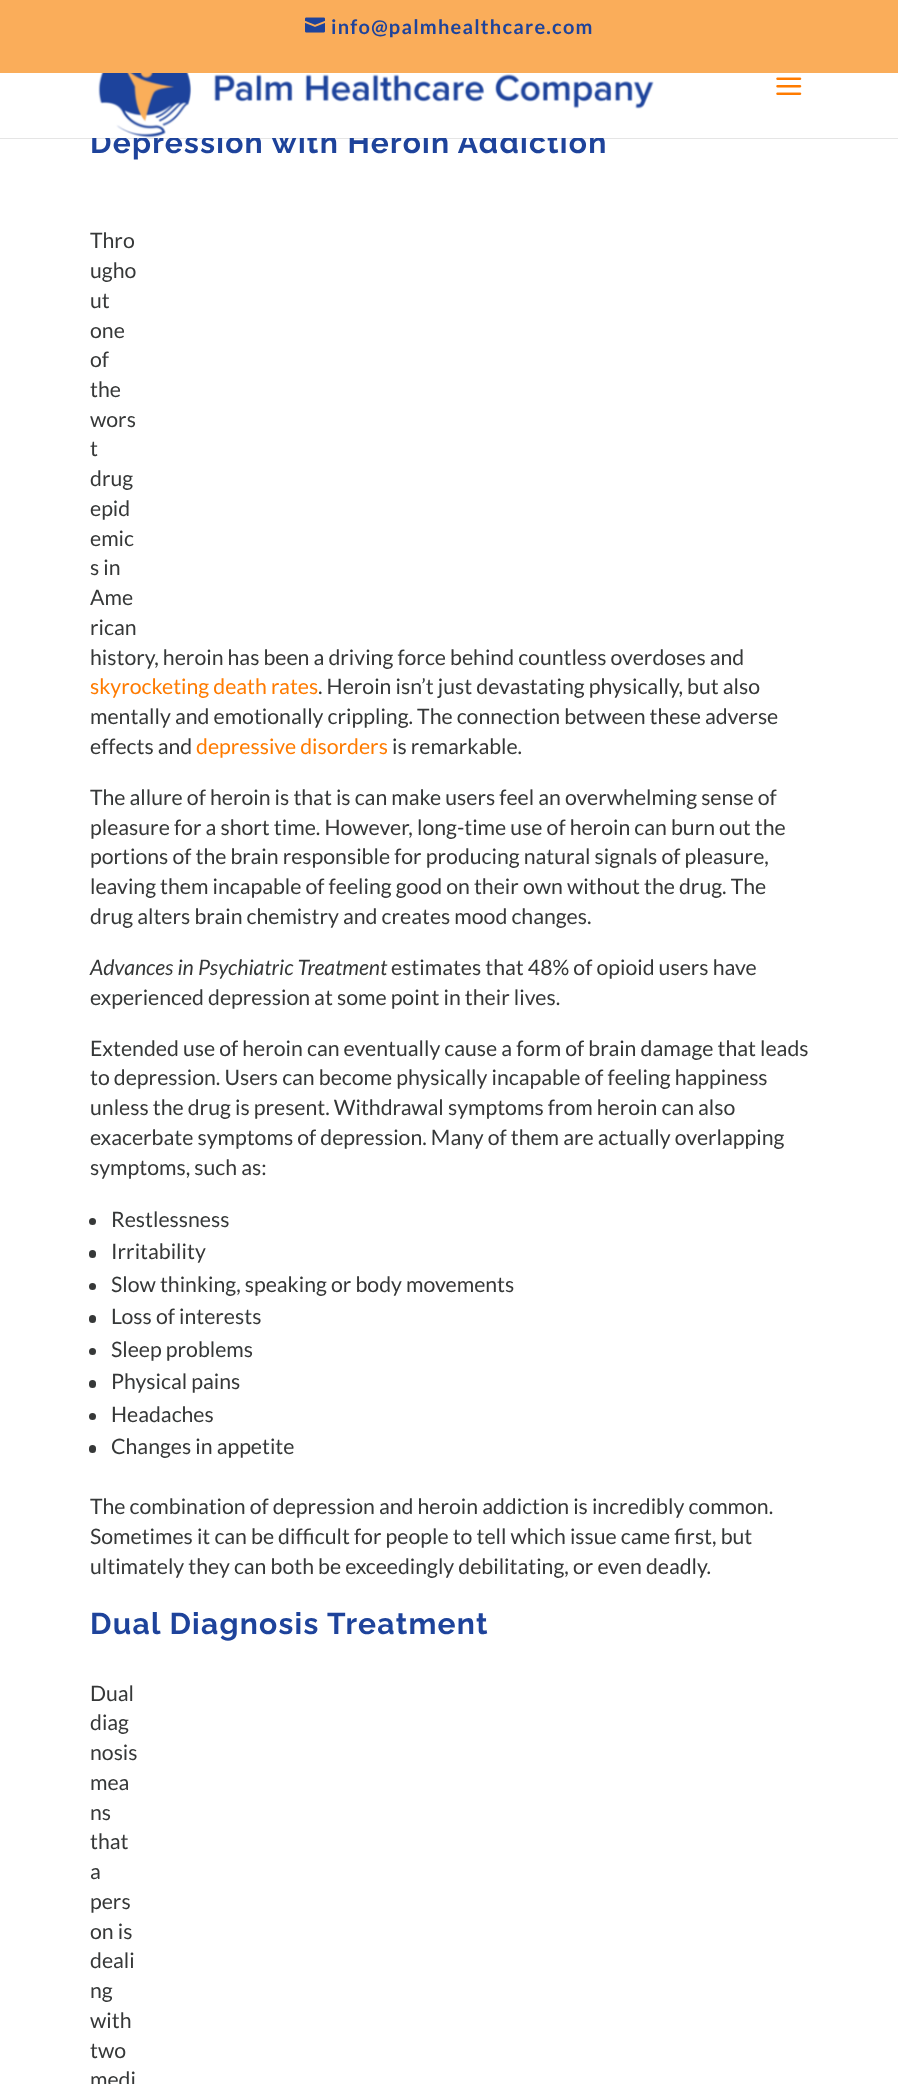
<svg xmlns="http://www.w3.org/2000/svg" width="898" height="2084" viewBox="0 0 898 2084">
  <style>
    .t1 { font: bold 20px Lato; letter-spacing: 1.25px; fill: #1e439b; }
    .t2 { font: bold 30px Raleway; letter-spacing: 1.25px; fill: #1e439b; }
    .t3 { font: 21.25px Lato; fill: #363838; }
    .t4 { font: 21.25px Lato; fill: #ff7b00; }
    .t5 { font: italic 21.25px Lato; fill: #363838; }
  </style>
  <rect width="100%" height="100%" fill="#fff"/>
  <rect x="0" y="0" width="898" height="73" fill="#faad5a"/>
  <image x="305" y="17" width="20" height="16" href="images/1.png"/>
  <text x="331" y="34" class="t1">info@palmhealthcare.com</text>
  <path d="M0 138V139H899V39V138Z" fill="#0000001a"/>
  <text x="90" y="153" class="t2">Depression with Heroin Addiction</text>
  <rect x="92" y="131" width="511" height="7" fill="#fff"/>
  <image x="98" y="73" width="556" height="65" href="images/2.png"/>
  <image x="776" y="77" width="26" height="18" href="images/3.png"/>
  <text x="90" y="248" class="t3">Thro</text>
  <text x="90" y="278" class="t3">ugho</text>
  <text x="90" y="308" class="t3">ut</text>
  <text x="90" y="338" class="t3">one</text>
  <text x="90" y="367" class="t3">of</text>
  <text x="90" y="397" class="t3">the</text>
  <text x="90" y="427" class="t3">wors</text>
  <text x="90" y="456" class="t3">t</text>
  <text x="90" y="486" class="t3">drug</text>
  <text x="90" y="516" class="t3">epid</text>
  <text x="90" y="546" class="t3">emic</text>
  <text x="90" y="575" class="t3">s in</text>
  <text x="90" y="605" class="t3">Ame</text>
  <text x="90" y="635" class="t3">rican</text>
  <text x="90" y="665" class="t3">history, heroin has been a driving force behind countless overdoses and</text>
  <text x="90" y="694" class="t4">skyrocketing death rates</text>
  <text x="318" y="694" class="t3">. Heroin isn’t just devastating physically, but also</text>
  <text x="90" y="724" class="t3">mentally and emotionally crippling. The connection between these adverse</text>
  <text x="90" y="754" class="t3">effects and</text>
  <text x="196" y="754" class="t4">depressive disorders</text>
  <text x="392" y="754" class="t3">is remarkable.</text>
  <text x="90" y="805" class="t3">The allure of heroin is that is can make users feel an overwhelming sense of</text>
  <text x="90" y="835" class="t3">pleasure for a short time. However, long-time use of heroin can burn out the</text>
  <text x="90" y="864" class="t3">portions of the brain responsible for producing natural signals of pleasure,</text>
  <text x="90" y="894" class="t3">leaving them incapable of feeling good on their own without the drug. The</text>
  <text x="90" y="924" class="t3">drug alters brain chemistry and creates mood changes.</text>
  <text x="90" y="975" class="t5">Advances in Psychiatric Treatment</text>
  <text x="391" y="975" class="t3">estimates that 48% of opioid users have</text>
  <text x="90" y="1005" class="t3">experienced depression at some point in their lives.</text>
  <text x="90" y="1056" class="t3">Extended use of heroin can eventually cause a form of brain damage that leads</text>
  <text x="90" y="1085" class="t3">to depression. Users can become physically incapable of feeling happiness</text>
  <text x="90" y="1115" class="t3">unless the drug is present. Withdrawal symptoms from heroin can also</text>
  <text x="90" y="1145" class="t3">exacerbate symptoms of depression. Many of them are actually overlapping</text>
  <text x="90" y="1175" class="t3">symptoms, such as:</text>
  <circle cx="92.5" cy="1221.5" r="3.5" fill="#363838"/>
  <text x="111" y="1227" class="t3">Restlessness</text>
  <rect x="89" y="1250" width="7" height="8" rx="3.5" fill="#363838"/>
  <text x="111" y="1259" class="t3">Irritability</text>
  <circle cx="92.5" cy="1286.5" r="3.5" fill="#363838"/>
  <text x="111" y="1292" class="t3">Slow thinking, speaking or body movements</text>
  <rect x="89" y="1315" width="7" height="8" rx="3.5" fill="#363838"/>
  <text x="111" y="1324" class="t3">Loss of interests</text>
  <circle cx="92.5" cy="1351.5" r="3.5" fill="#363838"/>
  <text x="111" y="1357" class="t3">Sleep problems</text>
  <rect x="89" y="1380" width="7" height="8" rx="3.5" fill="#363838"/>
  <text x="111" y="1389" class="t3">Physical pains</text>
  <circle cx="92.5" cy="1416.5" r="3.5" fill="#363838"/>
  <text x="111" y="1422" class="t3">Headaches</text>
  <rect x="89" y="1445" width="7" height="8" rx="3.5" fill="#363838"/>
  <text x="111" y="1454" class="t3">Changes in appetite</text>
  <text x="90" y="1514" class="t3">The combination of depression and heroin addiction is incredibly common.</text>
  <text x="90" y="1544" class="t3">Sometimes it can be difficult for people to tell which issue came first, but</text>
  <text x="90" y="1574" class="t3">ultimately they can both be exceedingly debilitating, or even deadly.</text>
  <text x="90" y="1634" class="t2">Dual Diagnosis Treatment</text>
  <text x="90" y="1701" class="t3">Dual</text>
  <text x="90" y="1730" class="t3">diag</text>
  <text x="90" y="1760" class="t3">nosis</text>
  <text x="90" y="1790" class="t3">mea</text>
  <text x="90" y="1820" class="t3">ns</text>
  <text x="90" y="1849" class="t3">that</text>
  <text x="90" y="1879" class="t3">a</text>
  <text x="90" y="1909" class="t3">pers</text>
  <text x="90" y="1939" class="t3">on is</text>
  <text x="90" y="1968" class="t3">deali</text>
  <text x="90" y="1998" class="t3">ng</text>
  <text x="90" y="2028" class="t3">with</text>
  <text x="90" y="2058" class="t3">two</text>
  <text x="90" y="2087" class="t3">medi</text>
</svg>
